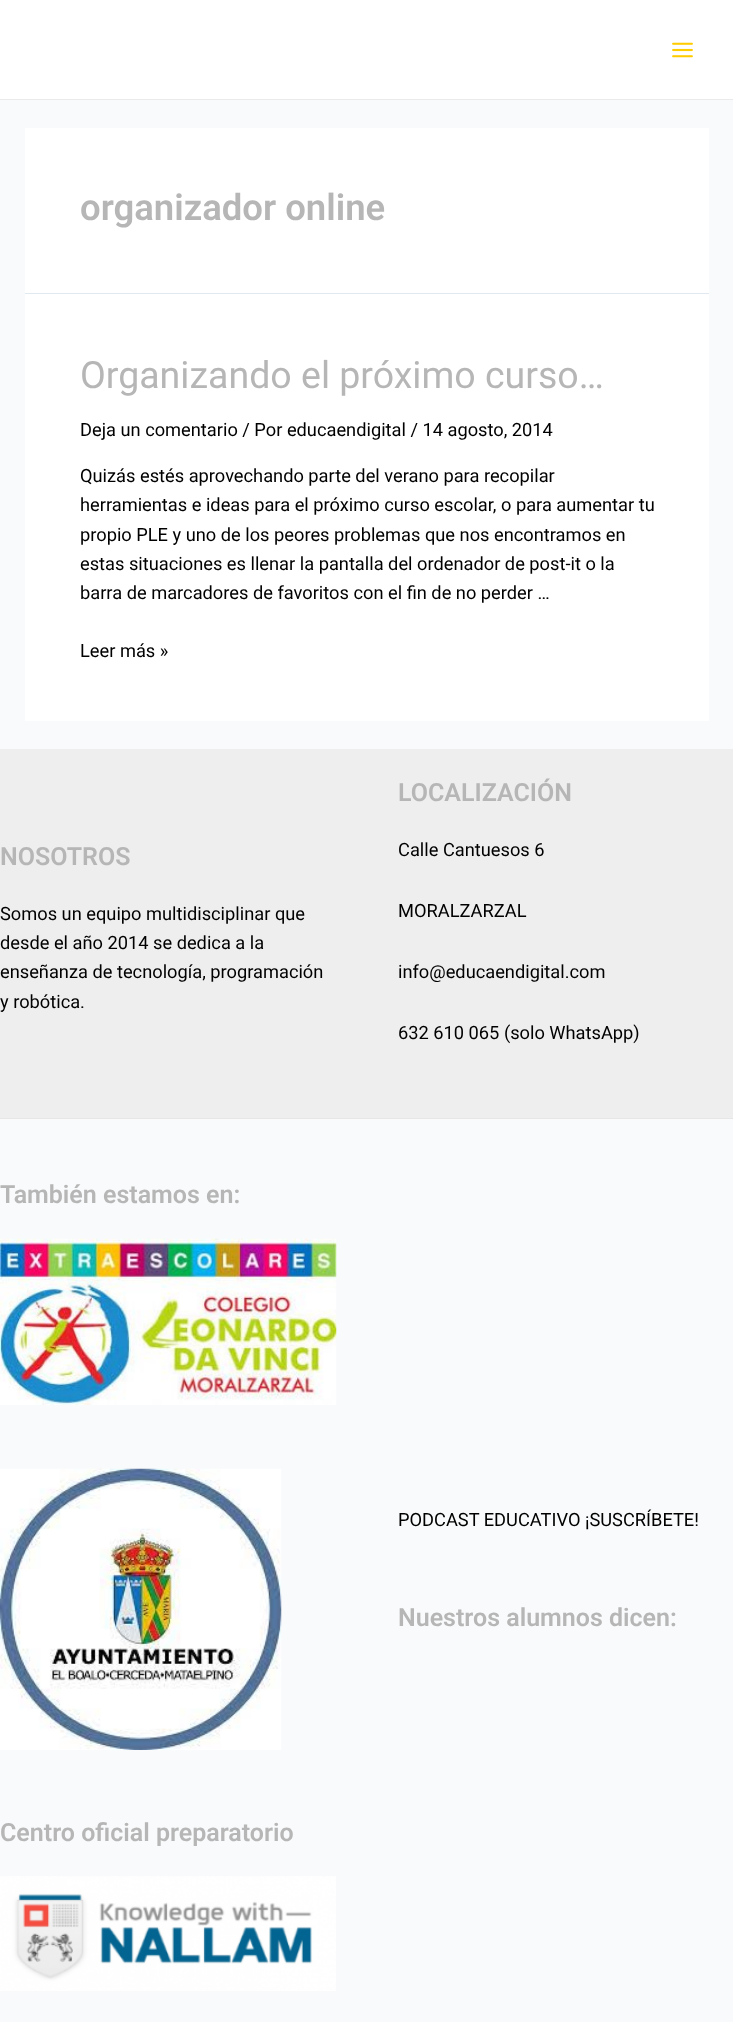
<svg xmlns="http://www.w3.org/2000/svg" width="733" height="2022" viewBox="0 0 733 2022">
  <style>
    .t1 { font: 600 36.5px Roboto; fill: #b6b6b6; }
    .t2 { font: 37.5px Roboto; fill: #b6b6b6; }
    .t3 { font: 18.25px Roboto; fill: #000; }
    .t4 { font: 600 25px Roboto; fill: #b6b6b6; }
  </style>
  <rect width="100%" height="100%" fill="#f9fafb"/>
  <rect x="0" y="0" width="733" height="99" fill="#fff"/>
  <rect x="0" y="99" width="733" height="1" fill="#eaeaea"/>
  <image x="672" y="42" width="21" height="16" href="images/1.png"/>
  <rect x="25" y="128" width="684" height="165" fill="#fff"/>
  <rect x="25" y="293" width="684" height="1" fill="#e2e8f0"/>
  <text x="80" y="220" class="t1">organizador online</text>
  <rect x="25" y="294" width="684" height="427" fill="#fff"/>
  <text x="80" y="388" class="t2">Organizando el próximo curso…</text>
  <text x="80" y="436" class="t3">Deja un comentario / Por educaendigital / 14 agosto, 2014</text>
  <text x="80" y="482" class="t3">Quizás estés aprovechando parte del verano para recopilar</text>
  <text x="80" y="511" class="t3">herramientas e ideas para el próximo curso escolar, o para aumentar tu</text>
  <text x="80" y="541" class="t3">propio PLE y uno de los peores problemas que nos encontramos en</text>
  <text x="80" y="570" class="t3">estas situaciones es llenar la pantalla del ordenador de post-it o la</text>
  <text x="80" y="599" class="t3">barra de marcadores de favoritos con el fin de no perder …</text>
  <text x="80" y="657" class="t3">Leer más »</text>
  <rect x="0" y="749" width="733" height="369" fill="#eee"/>
  <text x="0" y="865" class="t4">NOSOTROS</text>
  <text x="0" y="920" class="t3">Somos un equipo multidisciplinar que</text>
  <text x="0" y="949" class="t3">desde el año 2014 se dedica a la</text>
  <text x="0" y="978" class="t3">enseñanza de tecnología, programación</text>
  <text x="0" y="1008" class="t3">y robótica.</text>
  <text x="398" y="801" class="t4">LOCALIZACIÓN</text>
  <text x="398" y="856" class="t3">Calle Cantuesos 6</text>
  <text x="398" y="917" class="t3">MORALZARZAL</text>
  <text x="398" y="978" class="t3">info@educaendigital.com</text>
  <text x="398" y="1039" class="t3">632 610 065 (solo WhatsApp)</text>
  <rect x="0" y="1118" width="733" height="1" fill="#e6e6e6"/>
  <text x="0" y="1203" class="t4">También estamos en:</text>
  <image x="0" y="1238" width="337" height="167" href="images/2.png"/>
  <image x="0" y="1468" width="282" height="282" href="images/3.png"/>
  <text x="0" y="1841" class="t4">Centro oficial preparatorio</text>
  <image x="0" y="1876" width="336" height="115" href="images/4.png"/>
  <text x="398" y="1526" class="t3">PODCAST EDUCATIVO ¡SUSCRÍBETE!</text>
  <text x="398" y="1626" class="t4">Nuestros alumnos dicen:</text>
</svg>
